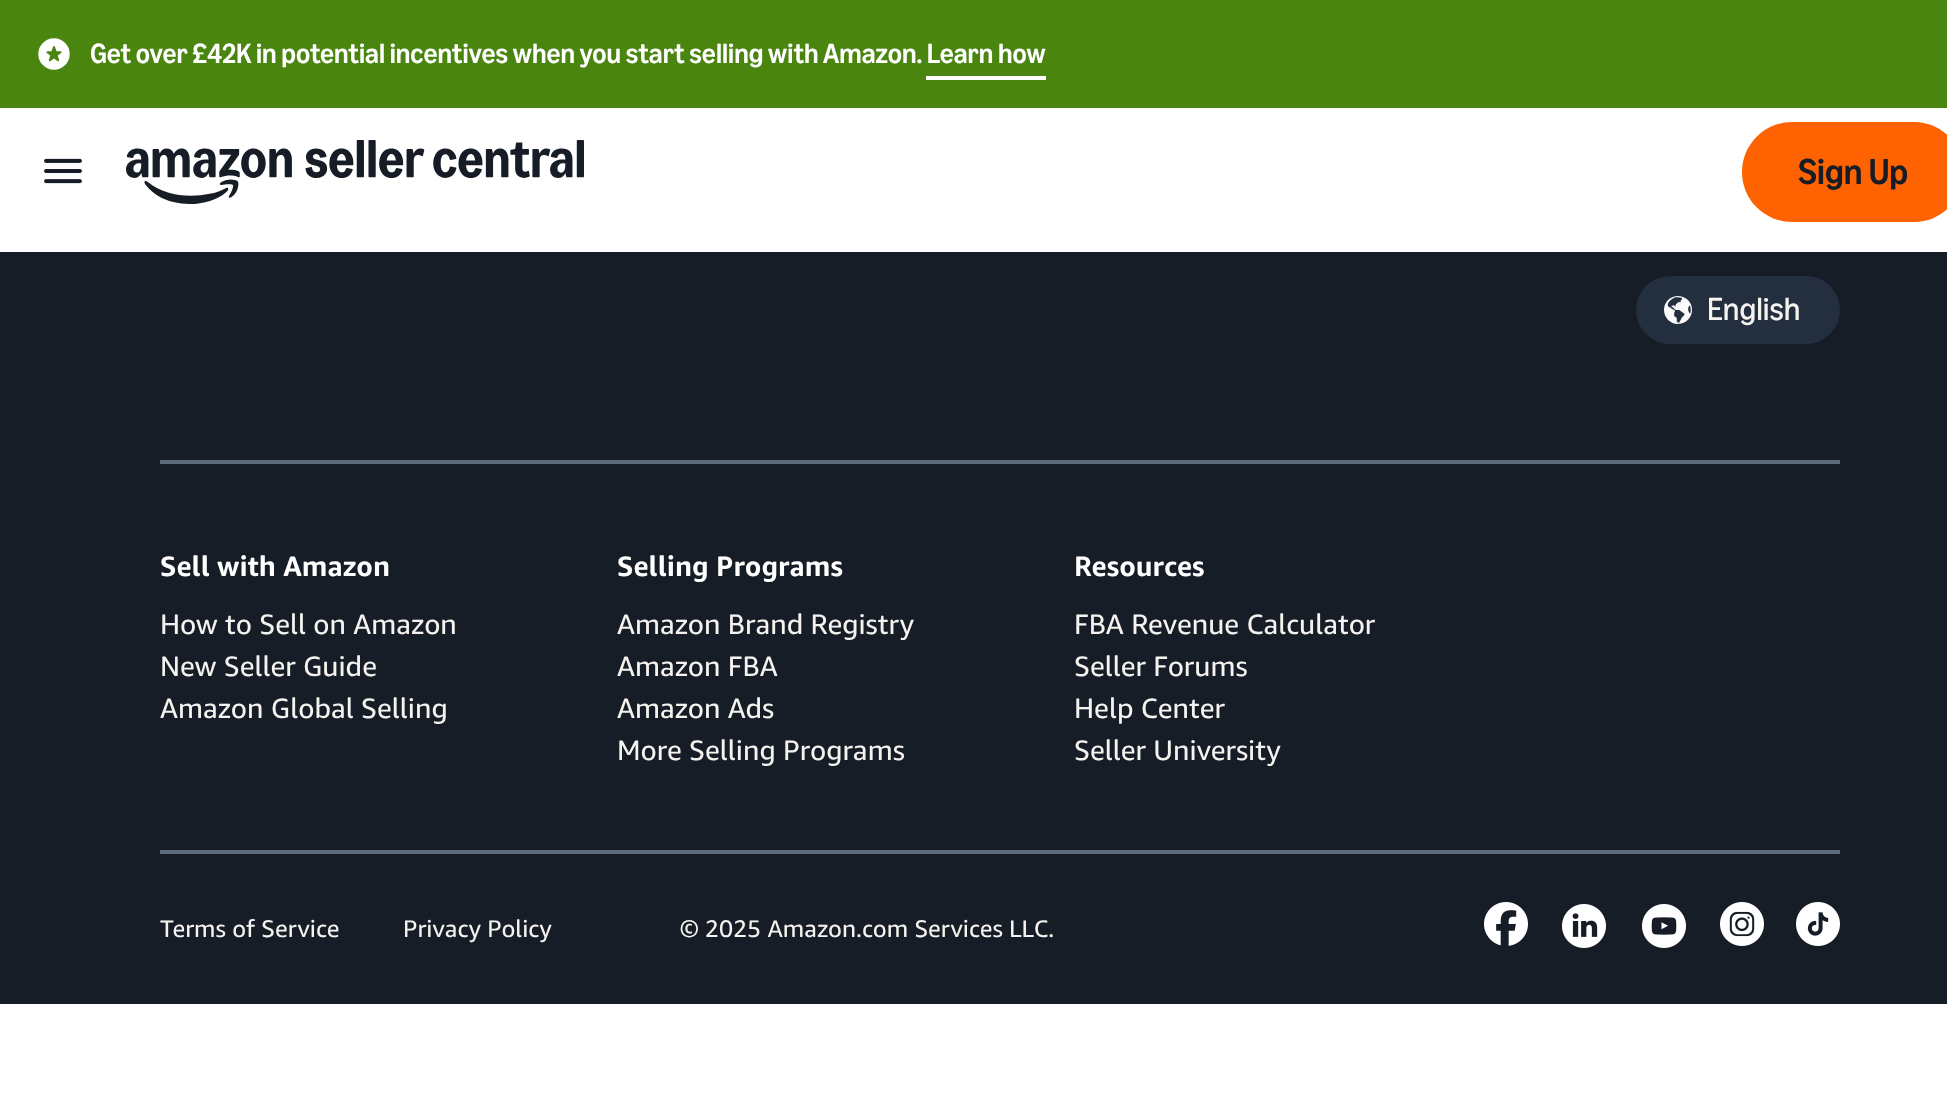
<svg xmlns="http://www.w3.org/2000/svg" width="1947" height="1109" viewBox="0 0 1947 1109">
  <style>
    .t1 { font: 500 28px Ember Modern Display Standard; fill: #fff; }
    .t2 { font: 500 36px Ember Modern Display Standard; fill: #161d26; }
    .t3 { font: 32px Ember Modern Display Standard; fill: #f5f3ef; }
    .t4 { font: bold 28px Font; fill: #fff; }
    .t5 { font: 28px Font; fill: #f5f3ef; }
    .t6 { font: 24px Font; fill: #f5f3ef; }
  </style>
  <rect width="100%" height="100%" fill="#fff"/>
  <rect x="0" y="0" width="1947" height="108" fill="#49850f"/>
  <image x="38" y="38" width="32" height="32" href="images/1.png"/>
  <text x="90" y="63" class="t1">Get over £42K in potential incentives when you start selling with Amazon. Learn how</text>
  <rect x="926" y="76" width="120" height="4" fill="#fff"/>
  <image x="44" y="158" width="38" height="26" href="images/2.png"/>
  <image x="126" y="140" width="458" height="64" href="images/3.png"/>
  <rect x="1742" y="122" width="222" height="100" rx="50" fill="#ff6200"/>
  <text x="1798" y="184" class="t2">Sign Up</text>
  <rect x="0" y="252" width="1947" height="752" fill="#161d26"/>
  <rect x="1636" y="276" width="204" height="68" rx="34" fill="#232f3e"/>
  <image x="1664" y="296" width="28" height="28" href="images/4.png"/>
  <text x="1707" y="320" class="t3">English</text>
  <rect x="160" y="460" width="1680" height="4" fill="#5e6a78"/>
  <rect x="160" y="850" width="1680" height="4" fill="#5e6a78"/>
  <text x="160" y="576" class="t4">Sell with Amazon</text>
  <text x="160" y="634" class="t5">How to Sell on Amazon</text>
  <text x="160" y="676" class="t5">New Seller Guide</text>
  <text x="160" y="718" class="t5">Amazon Global Selling</text>
  <text x="617" y="576" class="t4">Selling Programs</text>
  <text x="617" y="634" class="t5">Amazon Brand Registry</text>
  <text x="617" y="676" class="t5">Amazon FBA</text>
  <text x="617" y="718" class="t5">Amazon Ads</text>
  <text x="617" y="760" class="t5">More Selling Programs</text>
  <text x="1074" y="576" class="t4">Resources</text>
  <text x="1074" y="634" class="t5">FBA Revenue Calculator</text>
  <text x="1074" y="676" class="t5">Seller Forums</text>
  <text x="1074" y="718" class="t5">Help Center</text>
  <text x="1074" y="760" class="t5">Seller University</text>
  <text x="160" y="937" class="t6">Terms of Service</text>
  <text x="403" y="937" class="t6">Privacy Policy</text>
  <text x="680" y="937" class="t6">© 2025 Amazon.com Services LLC.</text>
  <image x="1484" y="902" width="44" height="44" href="images/5.png"/>
  <image x="1562" y="904" width="44" height="44" href="images/6.png"/>
  <image x="1642" y="904" width="44" height="44" href="images/7.png"/>
  <image x="1720" y="902" width="44" height="44" href="images/8.png"/>
  <image x="1796" y="902" width="44" height="44" href="images/9.png"/>
</svg>
